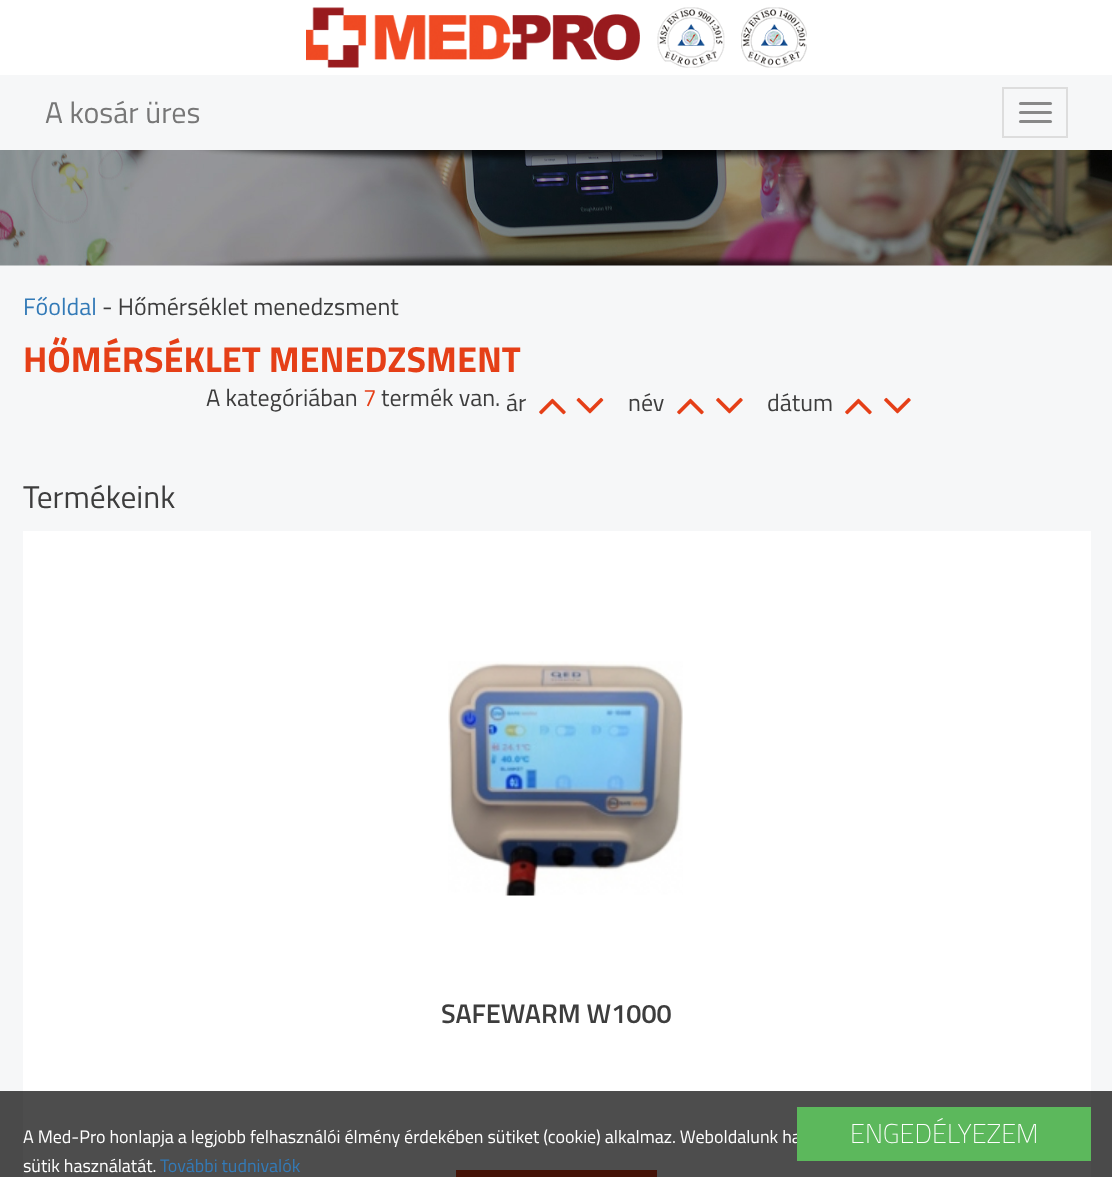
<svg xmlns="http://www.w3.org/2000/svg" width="1112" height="1177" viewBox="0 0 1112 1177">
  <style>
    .t1 { font: 30px Titillium Web; fill: #777; }
    .t2 { font: 24px Titillium Web; fill: #337ab7; }
    .t3 { font: 24px Titillium Web; fill: #3d3d3d; }
    .t4 { font: bold 36px Titillium Web; fill: #e53f17; }
    .t5 { font: 24px Titillium Web; fill: #e53f17; }
    .t6 { font: 31.5px Titillium Web; fill: #3d3d3d; }
    .t7 { font: 600 27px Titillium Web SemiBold; fill: #3d3d3d; }
    .t8 { font: 18px Titillium Web; fill: #fff; }
    .t9 { font: 18px Titillium Web; fill: #337ab7; }
    .t10 { font: 200 27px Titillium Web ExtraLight; fill: #fff; }
  </style>
  <rect width="100%" height="100%" fill="#f6f7f8"/>
  <rect x="0" y="1091" width="1112" height="86" fill="#4a4a4a"/>
  <rect x="0" y="0" width="1112" height="75" fill="#fff"/>
  <image x="306" y="7" width="501" height="61" href="images/1.png"/>
  <text x="45" y="123" class="t1">A kosár üres</text>
  <rect x="1003" y="88" width="64" height="49" fill="none" stroke="#ddd" stroke-width="2"/>
  <rect x="1019" y="102" width="33" height="3" rx="1.5" fill="#888"/>
  <rect x="1019" y="111" width="33" height="3" rx="1.5" fill="#888"/>
  <rect x="1019" y="120" width="33" height="3" rx="1.5" fill="#888"/>
  <image x="0" y="150" width="1112" height="116" href="images/2.png"/>
  <text x="23" y="315" class="t2">Főoldal</text>
  <text x="102" y="315" class="t3">- Hőmérséklet menedzsment</text>
  <text x="23" y="372" class="t4">HŐMÉRSÉKLET MENEDZSMENT</text>
  <text x="206" y="406" class="t3">A kategóriában</text>
  <text x="363" y="406" class="t5">7</text>
  <text x="381" y="406" class="t3">termék van.</text>
  <text x="506" y="411" class="t3">ár</text>
  <image x="539" y="398" width="27" height="17" href="images/3.png"/>
  <image x="576" y="397" width="28" height="17" href="images/4.png"/>
  <text x="628" y="411" class="t3">név</text>
  <image x="677" y="398" width="27" height="17" href="images/3.png"/>
  <image x="716" y="397" width="27" height="17" href="images/5.png"/>
  <text x="767" y="411" class="t3">dátum</text>
  <image x="845" y="398" width="27" height="17" href="images/3.png"/>
  <image x="884" y="397" width="27" height="17" href="images/5.png"/>
  <text x="23" y="508" class="t6">Termékeink</text>
  <rect x="23" y="531" width="1068" height="560" fill="#fff"/>
  <rect x="23" y="1091" width="1068" height="86" fill="#4d4d4d"/>
  <image x="448" y="661" width="235" height="235" href="images/6.png"/>
  <text x="441" y="1023" class="t7">SAFEWARM W1000</text>
  <rect x="456" y="1170" width="201" height="7" fill="#451307"/>
  <text x="23" y="1143" class="t8">A Med-Pro honlapja a legjobb felhasználói élmény érdekében sütiket (cookie) alkalmaz. Weboldalunk ha</text>
  <text x="23" y="1172" class="t8">sütik használatát.</text>
  <text x="160" y="1172" class="t9">További tudnivalók</text>
  <rect x="797" y="1107" width="294" height="54" fill="#5cb85c"/>
  <text x="850" y="1143" class="t10">ENGEDÉLYEZEM</text>
</svg>
